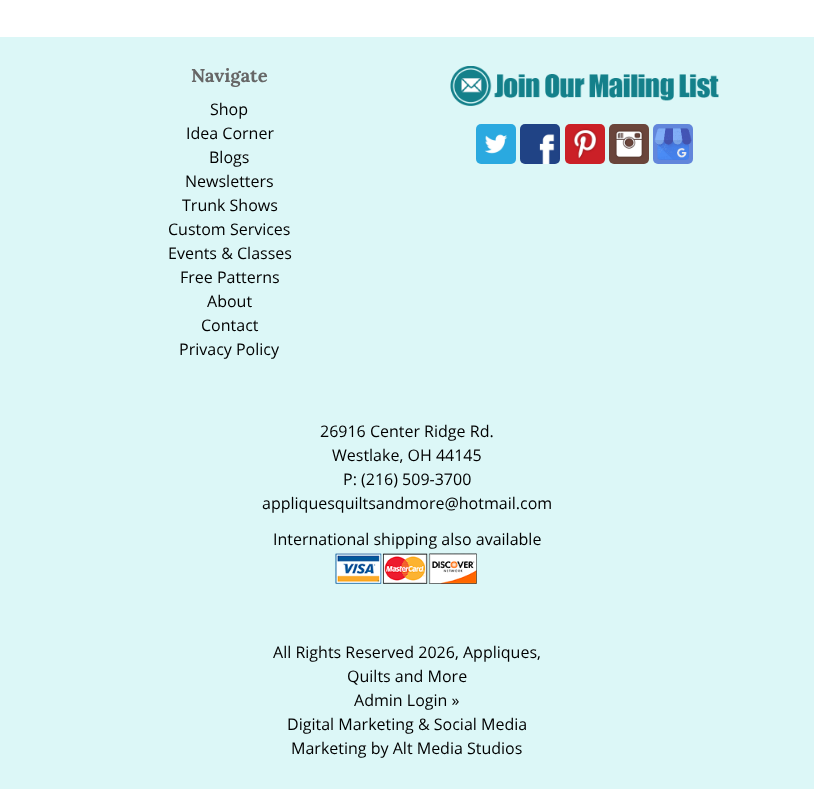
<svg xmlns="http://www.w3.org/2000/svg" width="814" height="789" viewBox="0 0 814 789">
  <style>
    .t1 { font: bold 18.5px Lora; fill: #666; }
    .t2 { font: 16px Open Sans; fill: #000; }
  </style>
  <rect width="100%" height="100%" fill="#dcf7f7"/>
  <rect x="0" y="0" width="814" height="37" fill="#fff"/>
  <text x="191" y="82" class="t1">Navigate</text>
  <text x="210" y="115" class="t2">Shop</text>
  <text x="186" y="139" class="t2">Idea Corner</text>
  <text x="209" y="163" class="t2">Blogs</text>
  <text x="185" y="187" class="t2">Newsletters</text>
  <text x="182" y="211" class="t2">Trunk Shows</text>
  <text x="168" y="235" class="t2">Custom Services</text>
  <text x="168" y="259" class="t2">Events &amp; Classes</text>
  <text x="180" y="283" class="t2">Free Patterns</text>
  <text x="207" y="307" class="t2">About</text>
  <text x="201" y="331" class="t2">Contact</text>
  <text x="179" y="355" class="t2">Privacy Policy</text>
  <image x="450" y="66" width="269" height="40" href="images/1.png"/>
  <image x="476" y="124" width="40" height="40" href="images/2.png"/>
  <image x="520" y="124" width="40" height="40" href="images/3.png"/>
  <image x="565" y="124" width="40" height="40" href="images/4.png"/>
  <image x="609" y="124" width="40" height="40" href="images/5.png"/>
  <image x="653" y="124" width="40" height="40" href="images/6.png"/>
  <text x="320" y="437" class="t2">26916 Center Ridge Rd.</text>
  <text x="332" y="461" class="t2">Westlake, OH 44145</text>
  <text x="343" y="485" class="t2">P: (216) 509-3700</text>
  <text x="262" y="509" class="t2">appliquesquiltsandmore@hotmail.com</text>
  <text x="273" y="545" class="t2">International shipping also available</text>
  <image x="335" y="553" width="142" height="31" href="images/7.png"/>
  <text x="273" y="658" class="t2">All Rights Reserved 2026, Appliques,</text>
  <text x="347" y="682" class="t2">Quilts and More</text>
  <text x="354" y="706" class="t2">Admin Login »</text>
  <text x="287" y="730" class="t2">Digital Marketing &amp; Social Media</text>
  <text x="291" y="754" class="t2">Marketing by Alt Media Studios</text>
</svg>
